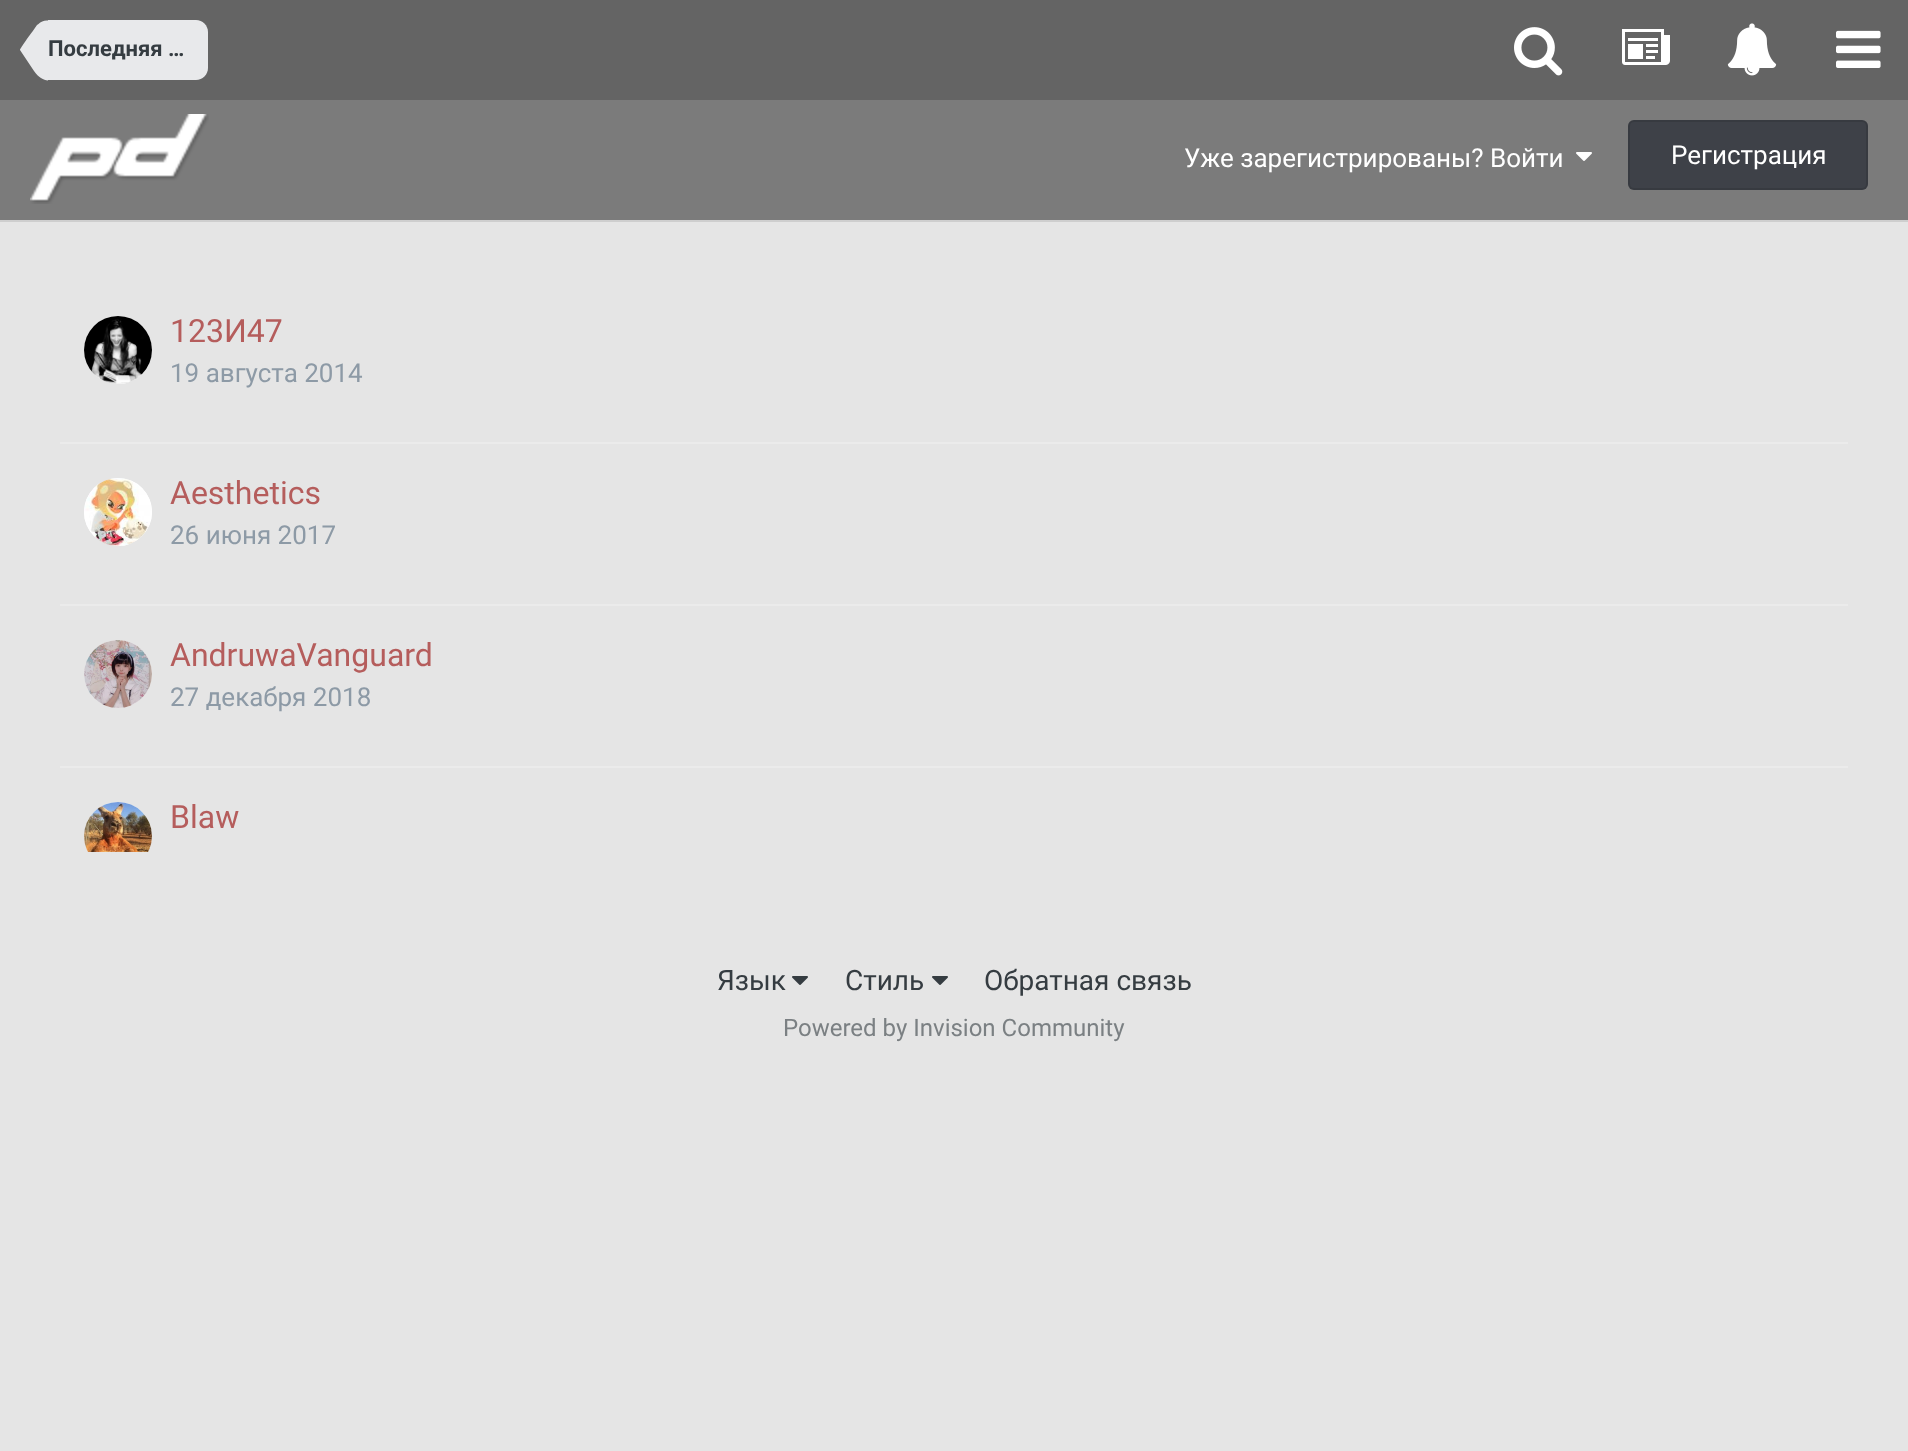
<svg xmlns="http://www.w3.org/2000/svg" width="1908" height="1451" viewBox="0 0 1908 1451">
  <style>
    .t1 { font: bold 22px Roboto; fill: #353c41; }
    .t2 { font: 26px Roboto; fill: #fff; }
    .t3 { font: 32px Roboto; fill: #b55d5c; }
    .t4 { font: 26px Roboto; fill: #8d9aa6; }
    .t5 { font: 28px Roboto; fill: #353c41; }
    .t6 { font: 24px Roboto; fill: #7b8083; }
  </style>
  <defs>
    <clipPath id="clip1"><rect x="30" y="252" width="1848" height="600"/></clipPath>
  </defs>
  <rect width="100%" height="100%" fill="#e5e5e5"/>
  <rect x="0" y="220" width="1908" height="2" fill="#cecece"/>
  <rect x="0" y="0" width="1908" height="100" fill="#646464"/>
  <path d="M48 20H196C202.5 20 208 25.5 208 32V68C208 74.5 202.5 80 196 80H48Z" fill="#e8e9eb"/>
  <path d="M48 50V80.5C43.5 80 38.5 77.5 34 71L20 50ZM48 50H20C20 48.5 31 33.5 32.5 31.5L37 25L38.5 24C41 21.5 44.5 20 48 20.5Z" fill="#e8e9eb"/>
  <text x="48" y="56" class="t1">Последняя …</text>
  <image x="1514" y="27" width="49" height="49" href="images/1.png"/>
  <image x="1622" y="29" width="48" height="36" href="images/2.png"/>
  <image x="1727" y="23" width="50" height="53" href="images/3.png"/>
  <image x="1836" y="30" width="45" height="38" href="images/4.png"/>
  <rect x="0" y="100" width="1908" height="120" fill="#7b7b7b"/>
  <image x="30" y="114" width="179" height="90" href="images/5.png"/>
  <text x="1184" y="167" class="t2">Уже зарегистрированы? Войти</text>
  <image x="1576" y="152" width="16" height="9" href="images/6.png"/>
  <rect x="1628" y="120" width="240" height="70" rx="6" fill="#3e4148"/>
  <rect x="1629" y="121" width="238" height="68" rx="5" fill="none" stroke="#0000001a" stroke-width="2"/>
  <text x="1671" y="164" class="t2">Регистрация</text>
  <rect x="60" y="442" width="1788" height="2" fill="#ebebeb"/>
  <circle cx="118" cy="350" r="34" fill="#fff"/>
  <image x="84" y="316" width="68" height="68" href="images/7.png"/>
  <text x="170" y="342" class="t3">123И47</text>
  <text x="170" y="382" class="t4">19 августа 2014</text>
  <rect x="60" y="604" width="1788" height="2" fill="#ebebeb"/>
  <circle cx="118" cy="512" r="34" fill="#fff"/>
  <image x="84" y="478" width="68" height="68" href="images/8.png"/>
  <text x="170" y="504" class="t3">Aesthetics</text>
  <text x="170" y="544" class="t4">26 июня 2017</text>
  <rect x="60" y="766" width="1788" height="2" fill="#ebebeb"/>
  <circle cx="118" cy="674" r="34" fill="#fff"/>
  <image x="84" y="640" width="68" height="68" href="images/9.png"/>
  <text x="170" y="666" class="t3">AndruwaVanguard</text>
  <text x="170" y="706" class="t4">27 декабря 2018</text>
  <g clip-path="url(#clip1)">
    <circle cx="118" cy="836" r="34" fill="#fff"/>
  </g>
  <image x="84" y="802" width="68" height="50" href="images/10.png"/>
  <text x="170" y="828" class="t3">Blaw</text>
  <text x="717" y="990" class="t5">Язык</text>
  <image x="792" y="976" width="16" height="9" href="images/11.png"/>
  <text x="845" y="990" class="t5">Стиль</text>
  <image x="932" y="976" width="16" height="9" href="images/11.png"/>
  <text x="984" y="990" class="t5">Обратная связь</text>
  <text x="783" y="1036" class="t6">Powered by Invision Community</text>
</svg>
